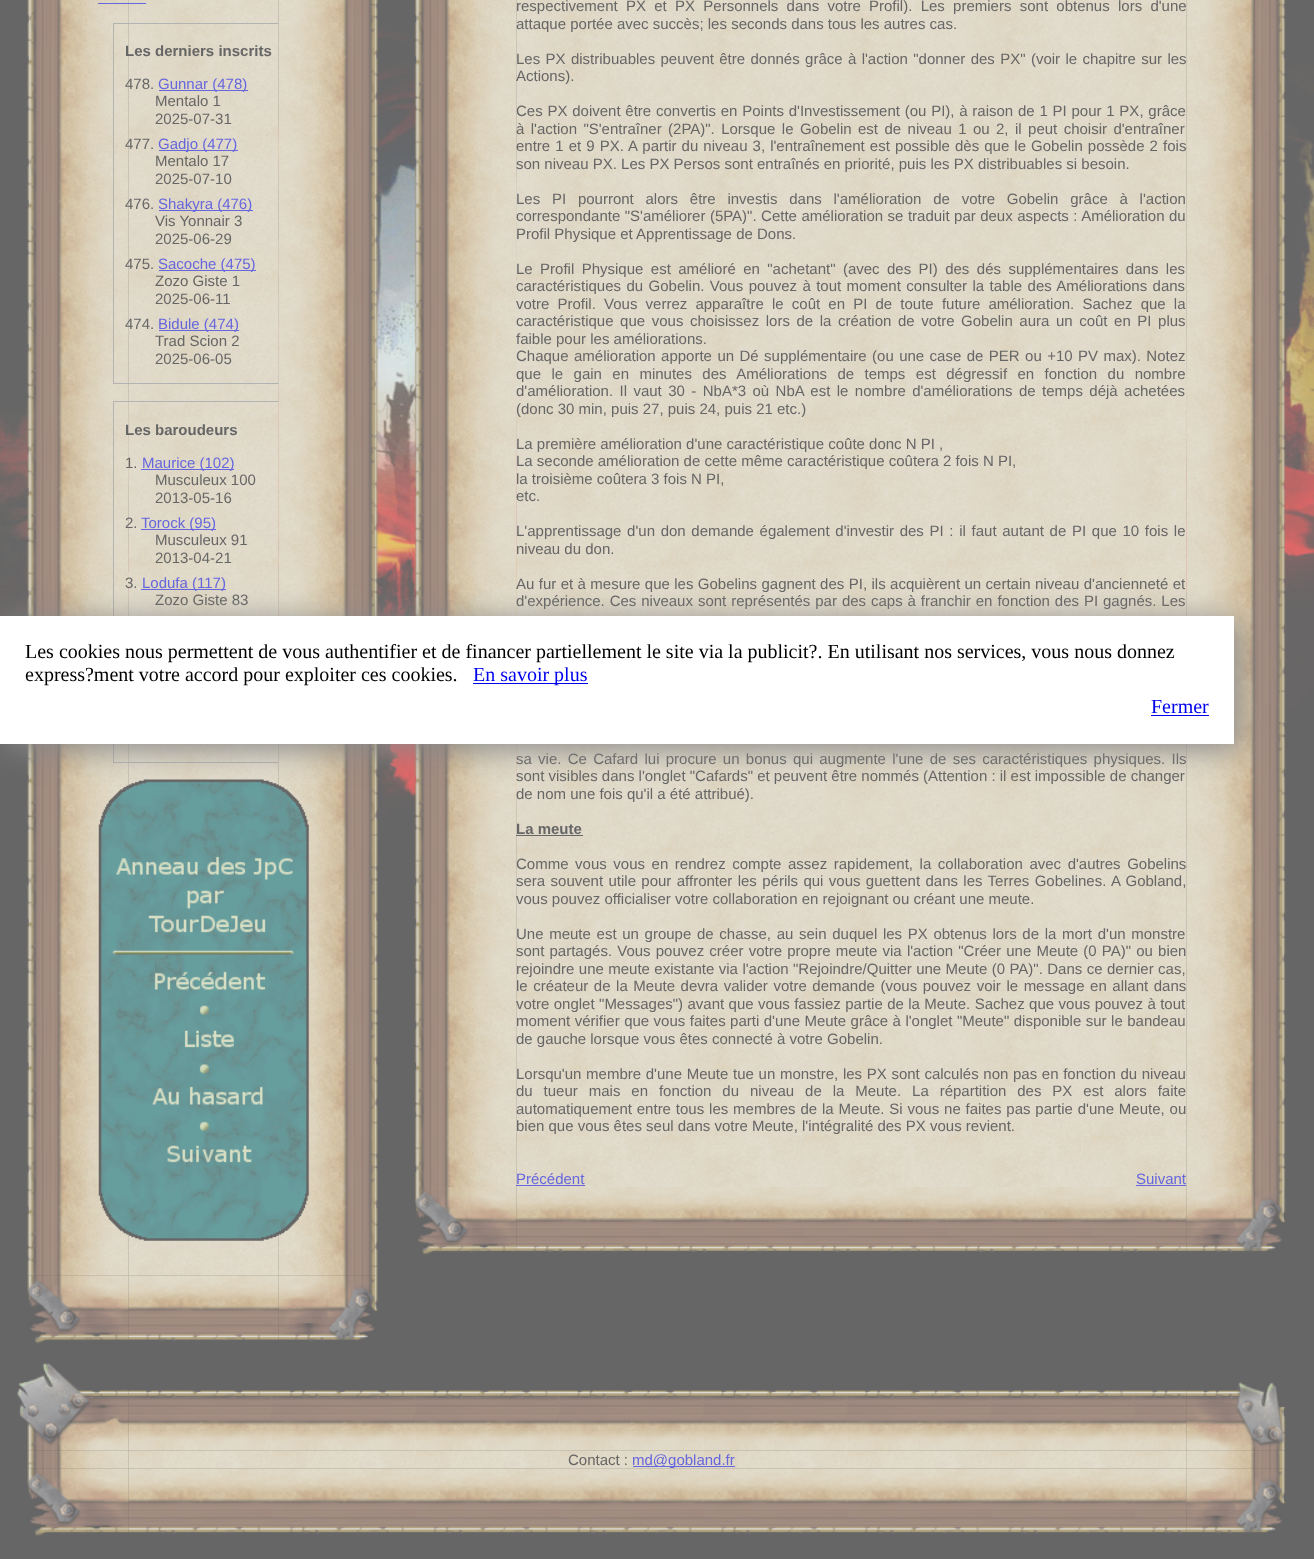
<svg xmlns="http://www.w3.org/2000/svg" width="1314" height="1559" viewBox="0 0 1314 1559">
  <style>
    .t1 { font: bold 15px Liberation Sans; fill: #666; }
    .t2 { font: 15px Liberation Sans; fill: #666; }
    .t3 { font: 15px Liberation Sans; fill: #66d; }
    .t4 { font: 20px Liberation Serif; fill: #000; }
    .t5 { font: 20px Liberation Serif; fill: #00e; }
  </style>
  <rect width="100%" height="100%" fill="#666"/>
  <image x="0" y="28" width="1314" height="807" href="images/1.png"/>
  <image x="27" y="0" width="102" height="1276" href="images/2.png"/>
  <image x="128" y="0" width="151" height="1276" href="images/3.png"/>
  <rect x="98" y="3" width="48" height="1" fill="#66d"/>
  <rect x="113.5" y="23.5" width="181" height="360" fill="none" stroke="#b3b3b3"/>
  <text x="125" y="56" class="t1">Les derniers inscrits</text>
  <text x="125" y="89" class="t2">478.</text>
  <rect x="159" y="90" width="89" height="1" fill="#66d"/>
  <text x="158" y="89" class="t3">Gunnar (478)</text>
  <text x="155" y="106" class="t2">Mentalo 1</text>
  <text x="155" y="124" class="t2">2025-07-31</text>
  <text x="125" y="149" class="t2">477.</text>
  <rect x="159" y="150" width="79" height="1" fill="#66d"/>
  <text x="158" y="149" class="t3">Gadjo (477)</text>
  <text x="155" y="166" class="t2">Mentalo 17</text>
  <text x="155" y="184" class="t2">2025-07-10</text>
  <text x="125" y="209" class="t2">476.</text>
  <rect x="159" y="210" width="94" height="1" fill="#66d"/>
  <text x="158" y="209" class="t3">Shakyra (476)</text>
  <text x="155" y="226" class="t2">Vis Yonnair 3</text>
  <text x="155" y="244" class="t2">2025-06-29</text>
  <text x="125" y="269" class="t2">475.</text>
  <rect x="159" y="270" width="97" height="1" fill="#66d"/>
  <text x="158" y="269" class="t3">Sacoche (475)</text>
  <text x="155" y="286" class="t2">Zozo Giste 1</text>
  <text x="155" y="304" class="t2">2025-06-11</text>
  <text x="125" y="329" class="t2">474.</text>
  <rect x="159" y="330" width="80" height="1" fill="#66d"/>
  <text x="158" y="329" class="t3">Bidule (474)</text>
  <text x="155" y="346" class="t2">Trad Scion 2</text>
  <text x="155" y="364" class="t2">2025-06-05</text>
  <rect x="113.5" y="401.5" width="181" height="361" fill="none" stroke="#b3b3b3"/>
  <text x="125" y="435" class="t1">Les baroudeurs</text>
  <text x="125" y="468" class="t2">1.</text>
  <rect x="141" y="469" width="93" height="1" fill="#66d"/>
  <text x="142" y="468" class="t3">Maurice (102)</text>
  <text x="155" y="485" class="t2">Musculeux 100</text>
  <text x="155" y="503" class="t2">2013-05-16</text>
  <text x="125" y="528" class="t2">2.</text>
  <rect x="141" y="529" width="75" height="1" fill="#66d"/>
  <text x="141" y="528" class="t3">Torock (95)</text>
  <text x="155" y="545" class="t2">Musculeux 91</text>
  <text x="155" y="563" class="t2">2013-04-21</text>
  <text x="125" y="588" class="t2">3.</text>
  <rect x="141" y="589" width="85" height="1" fill="#66d"/>
  <text x="142" y="588" class="t3">Lodufa (117)</text>
  <text x="155" y="605" class="t2">Zozo Giste 83</text>
  <image x="278" y="0" width="101" height="1276" href="images/5.png"/>
  <image x="98" y="779" width="211" height="462" href="images/4.png"/>
  <image x="27" y="1275" width="102" height="69" href="images/6.png"/>
  <image x="128" y="1275" width="151" height="66" href="images/7.png"/>
  <image x="278" y="1275" width="100" height="66" href="images/8.png"/>
  <image x="414" y="0" width="103" height="1187" href="images/9.png"/>
  <image x="516" y="0" width="671" height="1187" href="images/10.png"/>
  <text x="516" y="11" word-spacing="4.1" class="t2">respectivement PX et PX Personnels dans votre Profil). Les premiers sont obtenus lors d'une</text>
  <text x="516" y="29" class="t2">attaque portée avec succès; les seconds dans tous les autres cas.</text>
  <text x="516" y="64" word-spacing="1.2" class="t2">Les PX distribuables peuvent être donnés grâce à l'action "donner des PX" (voir le chapitre sur les</text>
  <text x="516" y="81" class="t2">Actions).</text>
  <text x="516" y="116" word-spacing="0.6" class="t2">Ces PX doivent être convertis en Points d'Investissement (ou PI), à raison de 1 PI pour 1 PX, grâce</text>
  <text x="516" y="134" word-spacing="2.25" class="t2">à l'action "S'entraîner (2PA)". Lorsque le Gobelin est de niveau 1 ou 2, il peut choisir d'entraîner</text>
  <text x="516" y="151" word-spacing="0.9" class="t2">entre 1 et 9 PX. A partir du niveau 3, l'entraînement est possible dès que le Gobelin possède 2 fois</text>
  <text x="516" y="169" class="t2">son niveau PX. Les PX Persos sont entraînés en priorité, puis les PX distribuables si besoin.</text>
  <text x="516" y="204" word-spacing="7.6" class="t2">Les PI pourront alors être investis dans l'amélioration de votre Gobelin grâce à l'action</text>
  <text x="516" y="221" word-spacing="0.3" class="t2">correspondante "S'améliorer (5PA)". Cette amélioration se traduit par deux aspects : Amélioration du</text>
  <text x="516" y="239" class="t2">Profil Physique et Apprentissage de Dons.</text>
  <text x="516" y="274" word-spacing="3.25" class="t2">Le Profil Physique est amélioré en "achetant" (avec des PI) des dés supplémentaires dans les</text>
  <text x="516" y="291" word-spacing="1.25" class="t2">caractéristiques du Gobelin. Vous pouvez à tout moment consulter la table des Améliorations dans</text>
  <image x="1186" y="0" width="100" height="1187" href="images/11.png"/>
  <text x="516" y="309" word-spacing="4" class="t2">votre Profil. Vous verrez apparaître le coût en PI de toute future amélioration. Sachez que la</text>
  <text x="516" y="326" word-spacing="2.4" class="t2">caractéristique que vous choisissez lors de la création de votre Gobelin aura un coût en PI plus</text>
  <text x="516" y="344" class="t2">faible pour les améliorations.</text>
  <text x="516" y="361" word-spacing="1.25" class="t2">Chaque amélioration apporte un Dé supplémentaire (ou une case de PER ou +10 PV max). Notez</text>
  <text x="516" y="379" word-spacing="6.25" class="t2">que le gain en minutes des Améliorations de temps est dégressif en fonction du nombre</text>
  <text x="516" y="396" word-spacing="2.25" class="t2">d'amélioration. Il vaut 30 - NbA*3 où NbA est le nombre d'améliorations de temps déjà achetées</text>
  <text x="516" y="414" class="t2">(donc 30 min, puis 27, puis 24, puis 21 etc.)</text>
  <text x="516" y="449" class="t2">La première amélioration d'une caractéristique coûte donc N PI ,</text>
  <text x="516" y="466" class="t2">La seconde amélioration de cette même caractéristique coûtera 2 fois N PI,</text>
  <text x="516" y="484" class="t2">la troisième coûtera 3 fois N PI,</text>
  <text x="516" y="501" class="t2">etc.</text>
  <text x="516" y="536" word-spacing="1.5" class="t2">L'apprentissage d'un don demande également d'investir des PI : il faut autant de PI que 10 fois le</text>
  <text x="516" y="554" class="t2">niveau du don.</text>
  <text x="516" y="589" word-spacing="0.25" class="t2">Au fur et à mesure que les Gobelins gagnent des PI, ils acquièrent un certain niveau d'ancienneté et</text>
  <text x="516" y="606" word-spacing="0.75" class="t2">d'expérience. Ces niveaux sont représentés par des caps à franchir en fonction des PI gagnés. Les</text>
  <text x="516" y="764" word-spacing="2.1" class="t2">sa vie. Ce Cafard lui procure un bonus qui augmente l'une de ses caractéristiques physiques. Ils</text>
  <text x="516" y="781" class="t2">sont visibles dans l'onglet "Cafards" et peuvent être nommés (Attention : il est impossible de changer</text>
  <text x="516" y="799" class="t2">de nom une fois qu'il a été attribué).</text>
  <text x="516" y="834" class="t1">La meute</text>
  <rect x="516" y="835" width="67" height="1" fill="#666"/>
  <text x="516" y="869" word-spacing="2.4" class="t2">Comme vous vous en rendrez compte assez rapidement, la collaboration avec d'autres Gobelins</text>
  <text x="516" y="886" word-spacing="1.2" class="t2">sera souvent utile pour affronter les périls qui vous guettent dans les Terres Gobelines. A Gobland,</text>
  <text x="516" y="904" class="t2">vous pouvez officialiser votre collaboration en rejoignant ou créant une meute.</text>
  <text x="516" y="939" word-spacing="1.5" class="t2">Une meute est un groupe de chasse, au sein duquel les PX obtenus lors de la mort d'un monstre</text>
  <text x="516" y="956" word-spacing="1" class="t2">sont partagés. Vous pouvez créer votre propre meute via l'action "Créer une Meute (0 PA)" ou bien</text>
  <text x="516" y="974" word-spacing="0.25" class="t2">rejoindre une meute existante via l'action "Rejoindre/Quitter une Meute (0 PA)". Dans ce dernier cas,</text>
  <text x="516" y="991" word-spacing="1.4" class="t2">le créateur de la Meute devra valider votre demande (vous pouvez voir le message en allant dans</text>
  <text x="516" y="1009" word-spacing="0.25" class="t2">votre onglet "Messages") avant que vous fassiez partie de la Meute. Sachez que vous pouvez à tout</text>
  <text x="516" y="1026" word-spacing="0.3" class="t2">moment vérifier que vous faites parti d'une Meute grâce à l'onglet "Meute" disponible sur le bandeau</text>
  <text x="516" y="1044" class="t2">de gauche lorsque vous êtes connecté à votre Gobelin.</text>
  <text x="516" y="1079" word-spacing="0.5" class="t2">Lorsqu'un membre d'une Meute tue un monstre, les PX sont calculés non pas en fonction du niveau</text>
  <text x="516" y="1096" word-spacing="6.75" class="t2">du tueur mais en fonction du niveau de la Meute. La répartition des PX est alors faite</text>
  <text x="516" y="1114" word-spacing="0.7" class="t2">automatiquement entre tous les membres de la Meute. Si vous ne faites pas partie d'une Meute, ou</text>
  <text x="516" y="1131" class="t2">bien que vous êtes seul dans votre Meute, l'intégralité des PX vous revient.</text>
  <text x="516" y="1184" class="t3">Précédent</text>
  <rect x="516" y="1185" width="69" height="1" fill="#66d"/>
  <text x="1136" y="1184" class="t3">Suivant</text>
  <rect x="1136" y="1185" width="50" height="1" fill="#66d"/>
  <image x="414" y="1187" width="103" height="68" href="images/12.png"/>
  <image x="516" y="1187" width="671" height="66" href="images/13.png"/>
  <image x="1186" y="1187" width="100" height="66" href="images/14.png"/>
  <image x="16" y="1363" width="113" height="88" href="images/15.png"/>
  <image x="128" y="1390" width="1059" height="61" href="images/16.png"/>
  <image x="1186" y="1382" width="100" height="69" href="images/17.png"/>
  <image x="27" y="1450" width="102" height="19" href="images/18.png"/>
  <image x="128" y="1450" width="1059" height="19" href="images/19.png"/>
  <text x="568" y="1465" class="t2">Contact :</text>
  <rect x="633" y="1466" width="102" height="1" fill="#66d"/>
  <image x="1186" y="1450" width="100" height="19" href="images/20.png"/>
  <image x="27" y="1468" width="102" height="68" href="images/21.png"/>
  <image x="128" y="1468" width="1059" height="66" href="images/22.png"/>
  <text x="632" y="1465" class="t3">md@gobland.fr</text>
  <image x="1186" y="1468" width="100" height="66" href="images/23.png"/>
  <rect x="5" y="621" width="1234" height="128" fill="#888" filter="blur(15.5px)"/>
  <rect x="0" y="616" width="1234" height="128" fill="#fff"/>
  <text x="25" y="658" class="t4">Les cookies nous permettent de vous authentifier et de financer partiellement le site via la publicit?. En utilisant nos services, vous nous donnez</text>
  <text x="25" y="681" class="t4">express?ment votre accord pour exploiter ces cookies.</text>
  <rect x="473" y="683" width="115" height="1" fill="#00e"/>
  <text x="473" y="681" class="t5">En savoir plus</text>
  <text x="1151" y="713" class="t5">Fermer</text>
  <rect x="1151" y="715" width="58" height="1" fill="#00e"/>
</svg>
